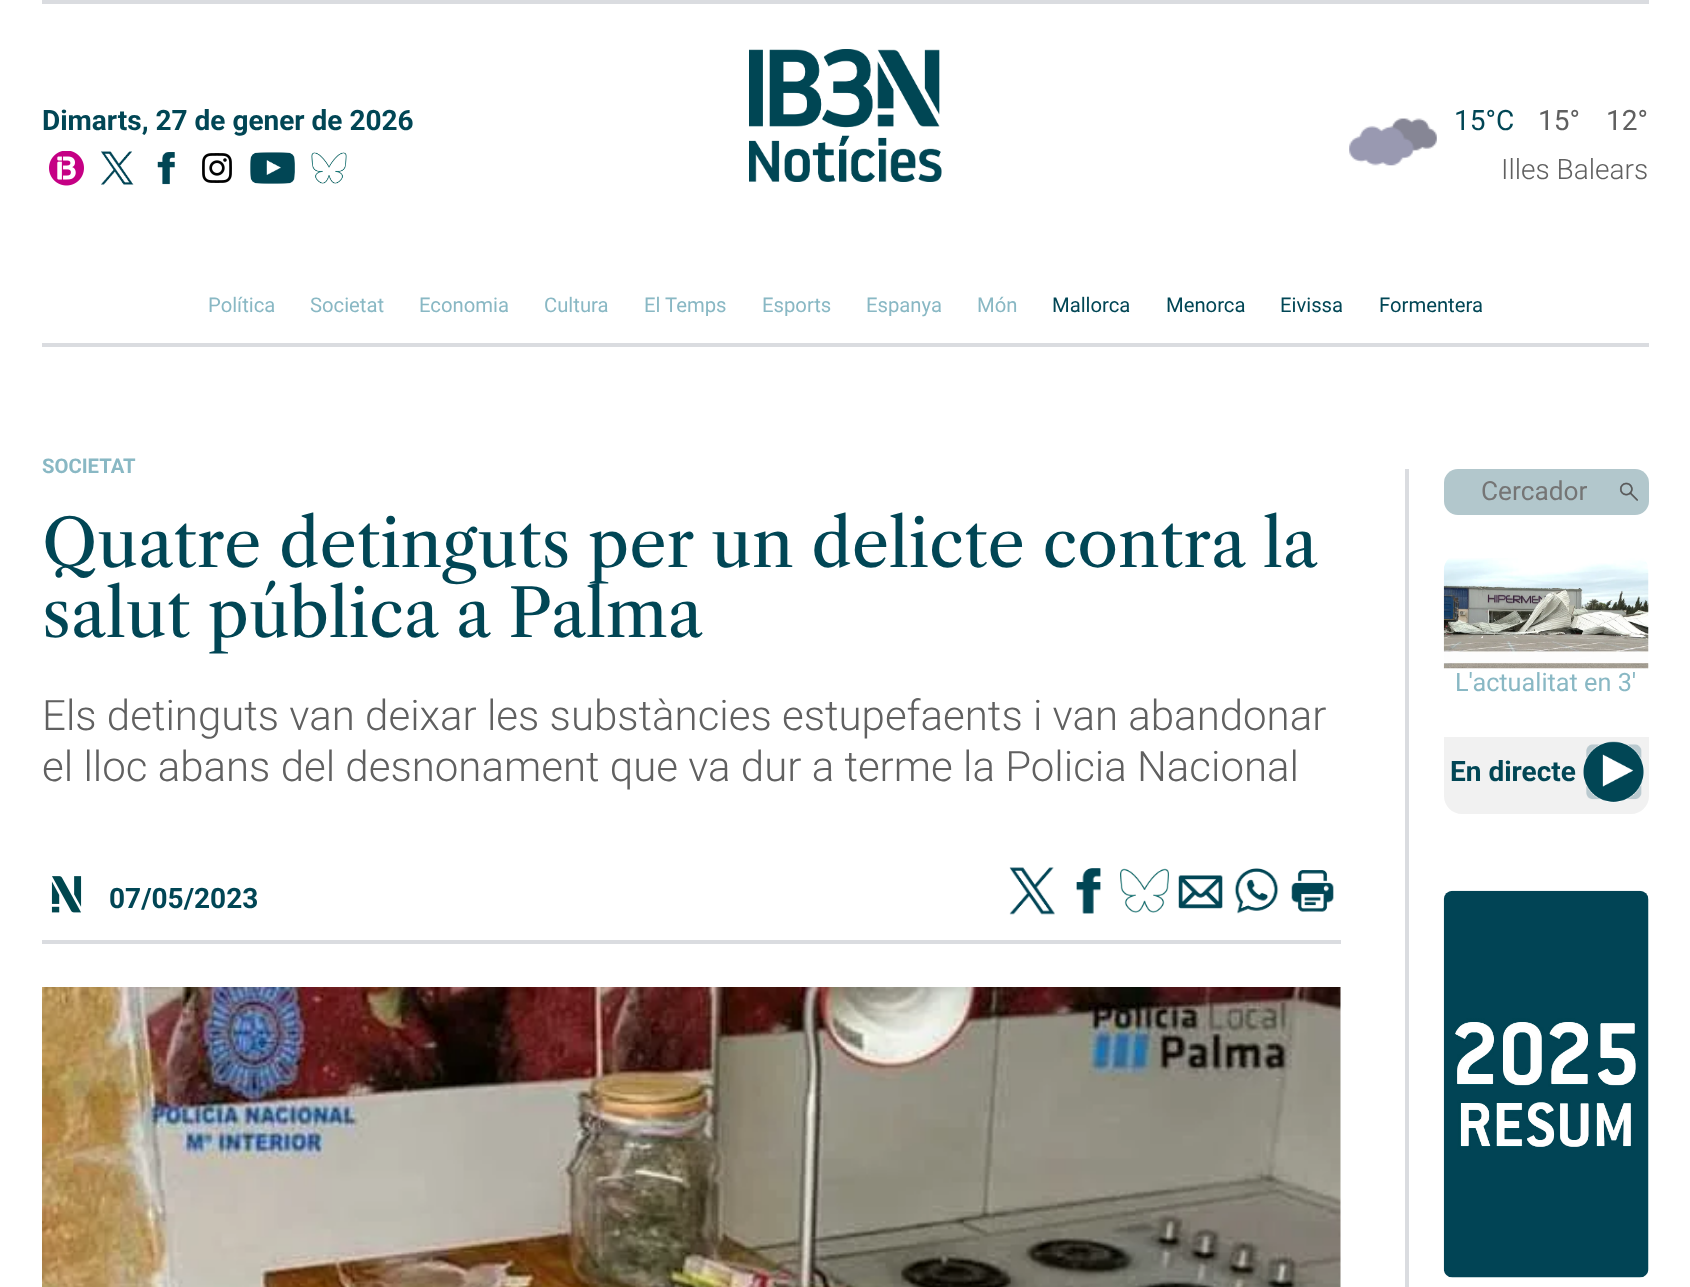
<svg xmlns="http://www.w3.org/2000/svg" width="1690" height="1287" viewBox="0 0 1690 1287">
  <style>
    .t1 { font: bold 28px Roboto; fill: #014655; }
    .t2 { font: 28px Roboto; fill: #014655; }
    .t3 { font: 28px Roboto; fill: #606060; }
    .t4 { font: 300 28px Roboto; fill: #606060; }
    .t5 { font: 20.25px Roboto; fill: #89b8c4; }
    .t6 { font: 20.25px Roboto; fill: #014655; }
    .t7 { font: bold 20.25px Roboto; fill: #89b8c4; }
    .t8 { font: 66.5px Libre Caslon Text; fill: #014655; }
    .t9 { font: 300 42px Roboto; fill: #606060; }
    .t10 { font: 26.25px Roboto; fill: #757575; }
    .t11 { font: 25.25px Roboto; fill: #89b8c4; }
  </style>
  <rect width="100%" height="100%" fill="#fff"/>
  <rect x="42" y="343" width="1607" height="4" fill="#dadce0"/>
  <rect x="42" y="0" width="1607" height="4" fill="#dadce0"/>
  <text x="42" y="130" class="t1">Dimarts, 27 de gener de 2026</text>
  <image x="49" y="151" width="35" height="35" href="images/1.png"/>
  <image x="101" y="151" width="33" height="34" href="images/2.png"/>
  <image x="157" y="152" width="18" height="33" href="images/3.png"/>
  <image x="202" y="153" width="30" height="30" href="images/4.png"/>
  <image x="250" y="152" width="45" height="32" href="images/5.png"/>
  <image x="311" y="152" width="36" height="32" href="images/6.png"/>
  <image x="749" y="49" width="193" height="133" href="images/7.png"/>
  <image x="1349" y="118" width="88" height="48" href="images/8.png"/>
  <text x="1454" y="130" class="t2">15°C</text>
  <text x="1538" y="130" class="t3">15°</text>
  <text x="1606" y="130" class="t3">12°</text>
  <text x="1501" y="179" class="t4">Illes Balears</text>
  <text x="208" y="312" class="t5">Política</text>
  <text x="310" y="312" class="t5">Societat</text>
  <text x="419" y="312" class="t5">Economia</text>
  <text x="544" y="312" class="t5">Cultura</text>
  <text x="644" y="312" class="t5">El Temps</text>
  <text x="762" y="312" class="t5">Esports</text>
  <text x="866" y="312" class="t5">Espanya</text>
  <text x="977" y="312" class="t5">Món</text>
  <text x="1052" y="312" class="t6">Mallorca</text>
  <text x="1166" y="312" class="t6">Menorca</text>
  <text x="1280" y="312" class="t6">Eivissa</text>
  <text x="1379" y="312" class="t6">Formentera</text>
  <text x="42" y="473" class="t7">SOCIETAT</text>
  <text x="42" y="567" class="t8">Quatre detinguts per un delicte contra la</text>
  <text x="42" y="637" class="t8">salut pública a Palma</text>
  <text x="42" y="730" class="t9">Els detinguts van deixar les substàncies estupefaents i van abandonar</text>
  <text x="42" y="781" class="t9">el lloc abans del desnonament que va dur a terme la Policia Nacional</text>
  <rect x="42" y="940" width="1299" height="4" fill="#dadce0"/>
  <image x="51" y="876" width="31" height="37" href="images/9.png"/>
  <text x="109" y="908" class="t1">07/05/2023</text>
  <image x="1009" y="867" width="46" height="48" href="images/10.png"/>
  <image x="1076" y="868" width="25" height="46" href="images/11.png"/>
  <image x="1120" y="868" width="49" height="45" href="images/12.png"/>
  <image x="1178" y="875" width="45" height="34" href="images/13.png"/>
  <image x="1234" y="868" width="45" height="46" href="images/14.png"/>
  <image x="1291" y="870" width="43" height="42" href="images/15.png"/>
  <image x="42" y="987" width="1299" height="300" href="images/16.png"/>
  <rect x="1405" y="469" width="4" height="818" fill="#dadce0"/>
  <rect x="1444" y="469" width="205" height="46" rx="14" fill="#b2c7cc"/>
  <text x="1481" y="500" class="t10">Cercador</text>
  <image x="1619" y="482" width="19" height="19" href="images/17.png"/>
  <image x="1443" y="558" width="206" height="111" href="images/18.png"/>
  <text x="1455" y="691" class="t11">L'actualitat en 3'</text>
  <path d="M1444 737H1649V796C1649 806 1641 814 1631 814H1462C1452 814 1444 806 1444 796Z" fill="#f1f1f1"/>
  <text x="1450" y="781" class="t1">En directe</text>
  <image x="1583" y="741" width="61" height="62" href="images/19.png"/>
  <image x="1443" y="890" width="206" height="388" href="images/20.png"/>
</svg>
